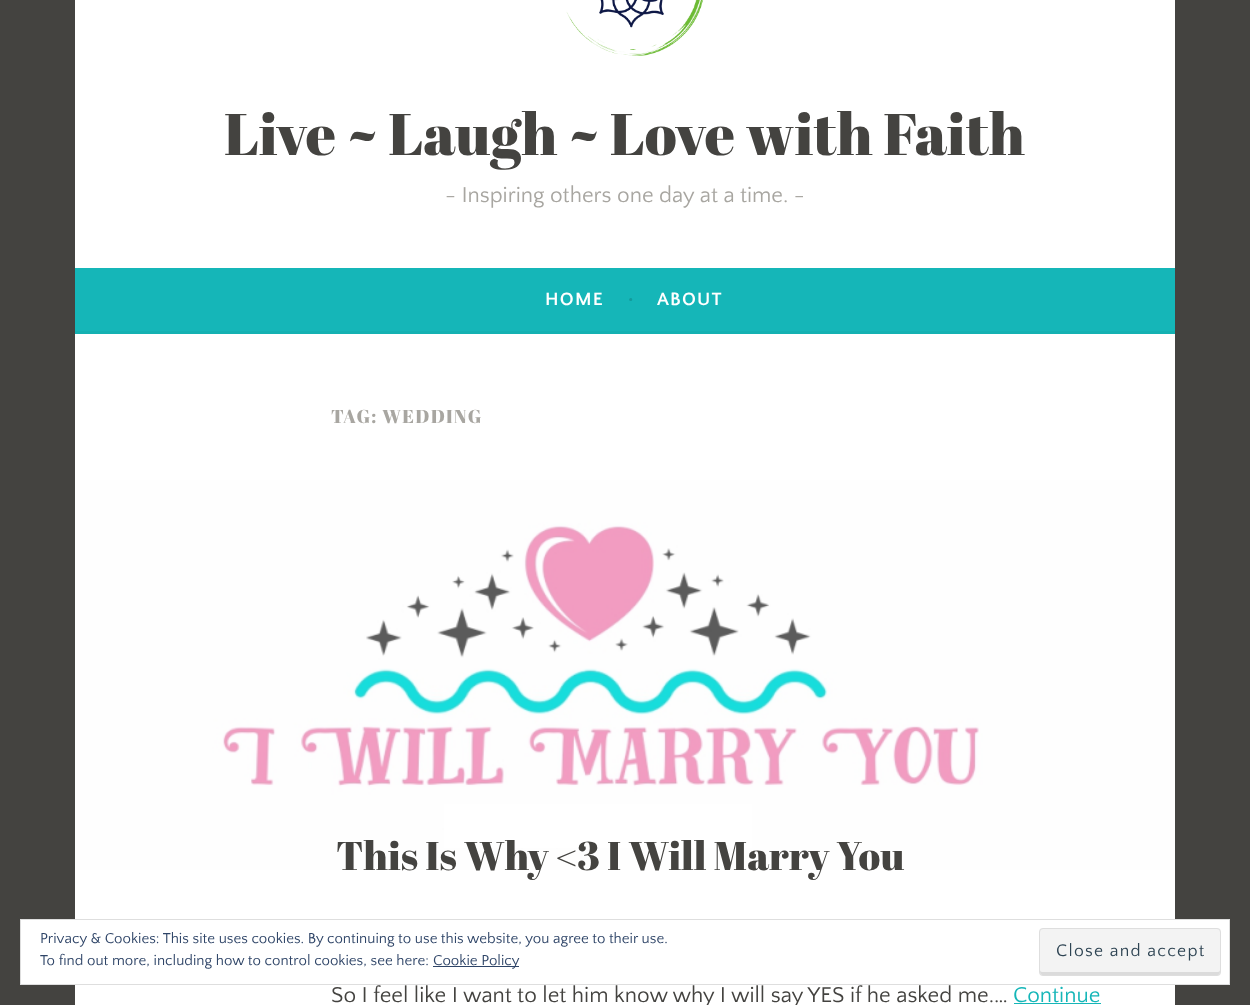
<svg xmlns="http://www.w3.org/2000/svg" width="1250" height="1005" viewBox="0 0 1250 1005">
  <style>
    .t1 { font: 58.75px Abril Fatface; fill: #444340; }
    .t2 { font: 22.5px Quattrocento Sans; fill: #a8a6a1; }
    .t3 { font: bold 18.75px Quattrocento Sans; letter-spacing: 1.25px; fill: #fff; }
    .t4 { font: 22.5px Quattrocento Sans; fill: #129b9c; }
    .t5 { font: 18.75px Abril Fatface; letter-spacing: 1.25px; fill: #a8a6a1; }
    .t6 { font: 40px Abril Fatface; fill: #444340; }
    .t7 { font: 22.5px Quattrocento Sans; fill: #444340; }
    .t8 { font: 22.5px Quattrocento Sans; fill: #15b6b8; }
    .t9 { font: 15px Quattrocento Sans; fill: #2e4467; }
    .t10 { font: 17.5px Quattrocento Sans; letter-spacing: 1.25px; fill: #2e4453; }
  </style>
  <rect width="100%" height="100%" fill="#444340"/>
  <rect x="75" y="0" width="1100" height="268" fill="#fff"/>
  <image x="566" y="0" width="138" height="56" href="images/1.png"/>
  <text x="224" y="155" class="t1">Live ~ Laugh ~ Love with Faith</text>
  <text x="445" y="202" class="t2">- Inspiring others one day at a time. -</text>
  <rect x="75" y="268" width="1100" height="63" fill="#15b6b8"/>
  <rect x="75" y="331" width="1100" height="3" fill="#14b1b2"/>
  <text x="545" y="305" class="t3">HOME</text>
  <text x="627" y="305" class="t4">•</text>
  <text x="657" y="305" class="t3">ABOUT</text>
  <rect x="75" y="334" width="1100" height="671" fill="#fff"/>
  <text x="331" y="423" class="t5">TAG: WEDDING</text>
  <image x="75" y="480" width="1100" height="390" href="images/2.png"/>
  <rect x="444" y="804" width="308" height="44" fill="#fff"/>
  <text x="336" y="870" class="t6">This Is Why &lt;3 I Will Marry You</text>
  <text x="331" y="1002" class="t7">So I feel like I want to let him know why I will say YES if he asked me.…</text>
  <text x="1013" y="1002" class="t8">Continue</text>
  <rect x="1014" y="1003" width="87" height="1" fill="#15b6b8"/>
  <rect x="20.5" y="919.5" width="1209" height="65" fill="#fff" stroke="#dedede"/>
  <text x="40" y="943" class="t9">Privacy &amp; Cookies: This site uses cookies. By continuing to use this website, you agree to their use.</text>
  <text x="40" y="965" class="t9">To find out more, including how to control cookies, see here:</text>
  <rect x="433" y="966" width="86" height="1" fill="#2e4467"/>
  <text x="433" y="965" class="t9">Cookie Policy</text>
  <rect x="1039" y="928" width="182" height="48" rx="4" fill="#f3f3f3"/>
  <path d="M1040 970C1040 972 1040 974 1042 975H1218C1220 975 1220 972 1220 970C1220 971 1219 972 1218 972H1042C1041 972 1040 971 1040 970Z" fill="#dbdbdb"/>
  <rect x="1039.5" y="928.5" width="181" height="47" rx="3.5" fill="none" stroke="#dedede"/>
  <text x="1056" y="956" class="t10">Close and accept</text>
</svg>
